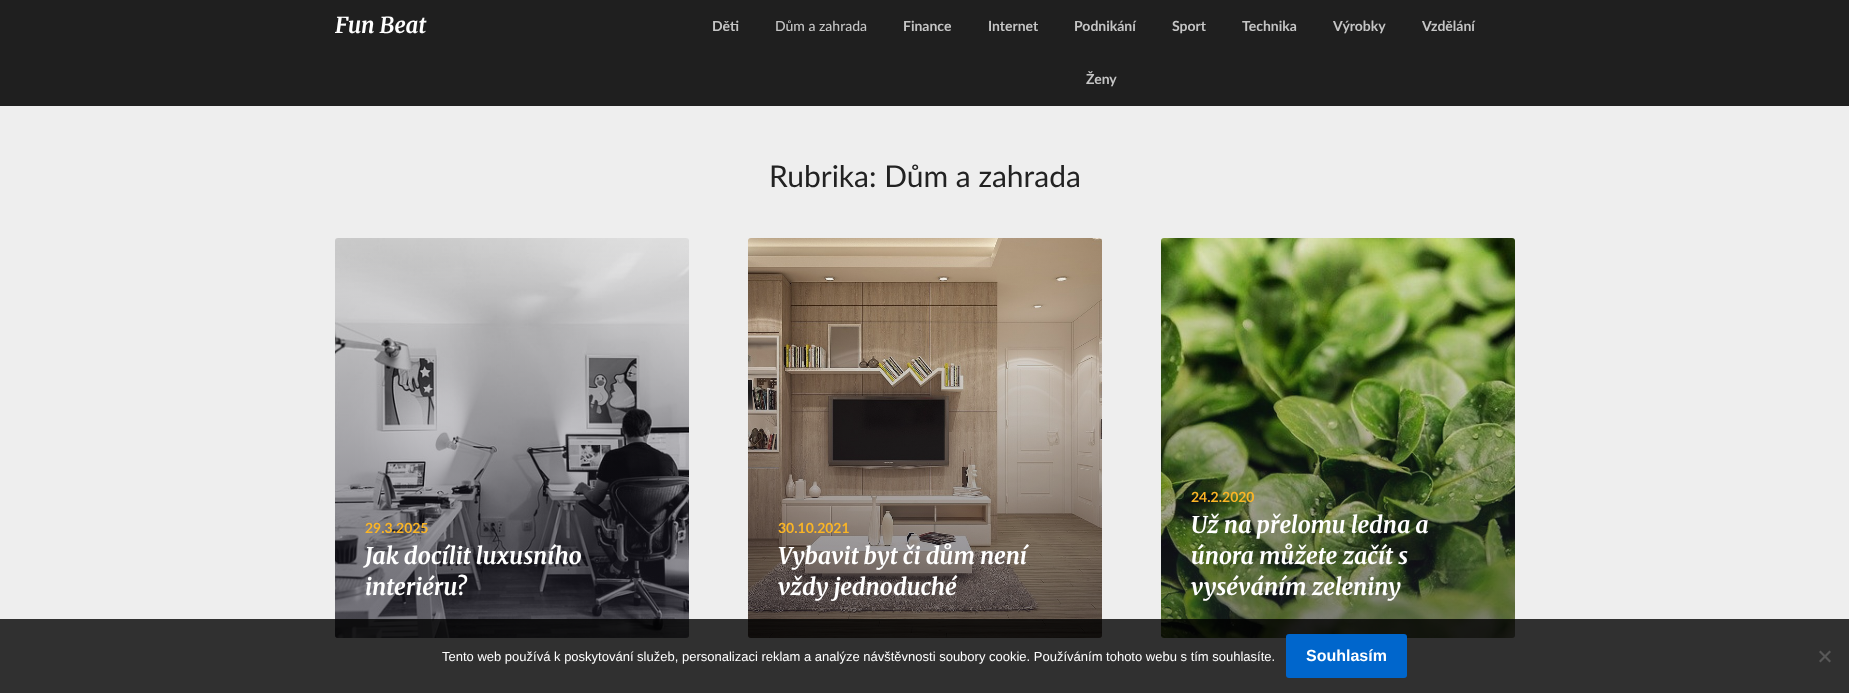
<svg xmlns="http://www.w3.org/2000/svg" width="1849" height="693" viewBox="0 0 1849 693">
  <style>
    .t1 { font: italic bold 22px Merriweather; fill: #fff; }
    .t2 { font: bold 14px Lato; fill: #c5c5c5; }
    .t3 { font: 500 14px Lato; fill: #c5c5c5; }
    .t4 { font: 30px Lato; fill: #222; }
    .t5 { font: bold 14px Lato; fill: #fab526; }
    .t6 { font: italic bold 23px Merriweather; fill: #fff; }
    .t7 { font: 13px Liberation Sans; fill: #fff; }
    .t8 { font: bold 16px Liberation Sans; fill: #fff; }
  </style>
  <defs>
    <linearGradient id="g1" gradientUnits="userSpaceOnUse" x1="512" y1="238" x2="512" y2="638"><stop offset="0" stop-color="#201e2c" stop-opacity="0"/><stop offset="0.88" stop-color="#201e2c" stop-opacity="0.51"/><stop offset="0.89" stop-color="#201e2c" stop-opacity="0.52"/></linearGradient>
    <linearGradient id="g2" gradientUnits="userSpaceOnUse" x1="925" y1="238" x2="925" y2="638"><stop offset="0" stop-color="#201e2c" stop-opacity="0"/><stop offset="0.88" stop-color="#201e2c" stop-opacity="0.51"/><stop offset="0.89" stop-color="#201e2c" stop-opacity="0.52"/></linearGradient>
    <linearGradient id="g3" gradientUnits="userSpaceOnUse" x1="1338" y1="238" x2="1338" y2="638"><stop offset="0" stop-color="#201e2c" stop-opacity="0"/><stop offset="0.88" stop-color="#201e2c" stop-opacity="0.51"/><stop offset="0.89" stop-color="#201e2c" stop-opacity="0.52"/></linearGradient>
  </defs>
  <rect width="100%" height="100%" fill="#eee"/>
  <rect x="0" y="0" width="1849" height="106" fill="#1f1f1f"/>
  <text x="335" y="33" class="t1">Fun Beat</text>
  <text x="712" y="31" class="t2">Děti</text>
  <text x="775" y="31" class="t3">Dům a zahrada</text>
  <text x="903" y="31" class="t2">Finance</text>
  <text x="988" y="31" class="t2">Internet</text>
  <text x="1074" y="31" class="t2">Podnikání</text>
  <text x="1172" y="31" class="t2">Sport</text>
  <text x="1242" y="31" class="t2">Technika</text>
  <text x="1333" y="31" class="t2">Výrobky</text>
  <text x="1422" y="31" class="t2">Vzdělání</text>
  <text x="1086" y="84" class="t2">Ženy</text>
  <text x="769" y="187" class="t4">Rubrika: Dům a zahrada</text>
  <image x="335" y="238" width="354" height="400" href="images/1.png"/>
  <rect x="335" y="238" width="354" height="400" rx="3" fill="url(#g1)"/>
  <text x="365" y="533" class="t5">29.3.2025</text>
  <text x="365" y="564" class="t6">Jak docílit luxusního</text>
  <text x="365" y="595" class="t6">interiéru?</text>
  <image x="748" y="238" width="354" height="400" href="images/2.png"/>
  <rect x="748" y="238" width="354" height="400" rx="3" fill="url(#g2)"/>
  <text x="778" y="533" class="t5">30.10.2021</text>
  <text x="778" y="564" class="t6">Vybavit byt či dům není</text>
  <text x="778" y="595" class="t6">vždy jednoduché</text>
  <image x="1161" y="238" width="354" height="400" href="images/3.png"/>
  <rect x="1161" y="238" width="354" height="400" rx="3" fill="url(#g3)"/>
  <text x="1191" y="502" class="t5">24.2.2020</text>
  <text x="1191" y="533" class="t6">Už na přelomu ledna a</text>
  <text x="1191" y="564" class="t6">února můžete začít s</text>
  <text x="1191" y="595" class="t6">vyséváním zeleniny</text>
  <rect x="0" y="619" width="1849" height="74" fill="#000000cc"/>
  <text x="442" y="661" class="t7">Tento web používá k poskytování služeb, personalizaci reklam a analýze návštěvnosti soubory cookie. Používáním tohoto webu s tím souhlasíte.</text>
  <rect x="1286" y="634" width="121" height="44" rx="3" fill="#06c"/>
  <text x="1306" y="661" class="t8">Souhlasím</text>
  <path d="M1829.5 650.5L1831 652L1820.5 662.5L1819 661Z" fill="#585858"/>
  <path d="M1819 652L1820.5 650.5L1831 661L1829.5 662.5Z" fill="#585858"/>
</svg>
